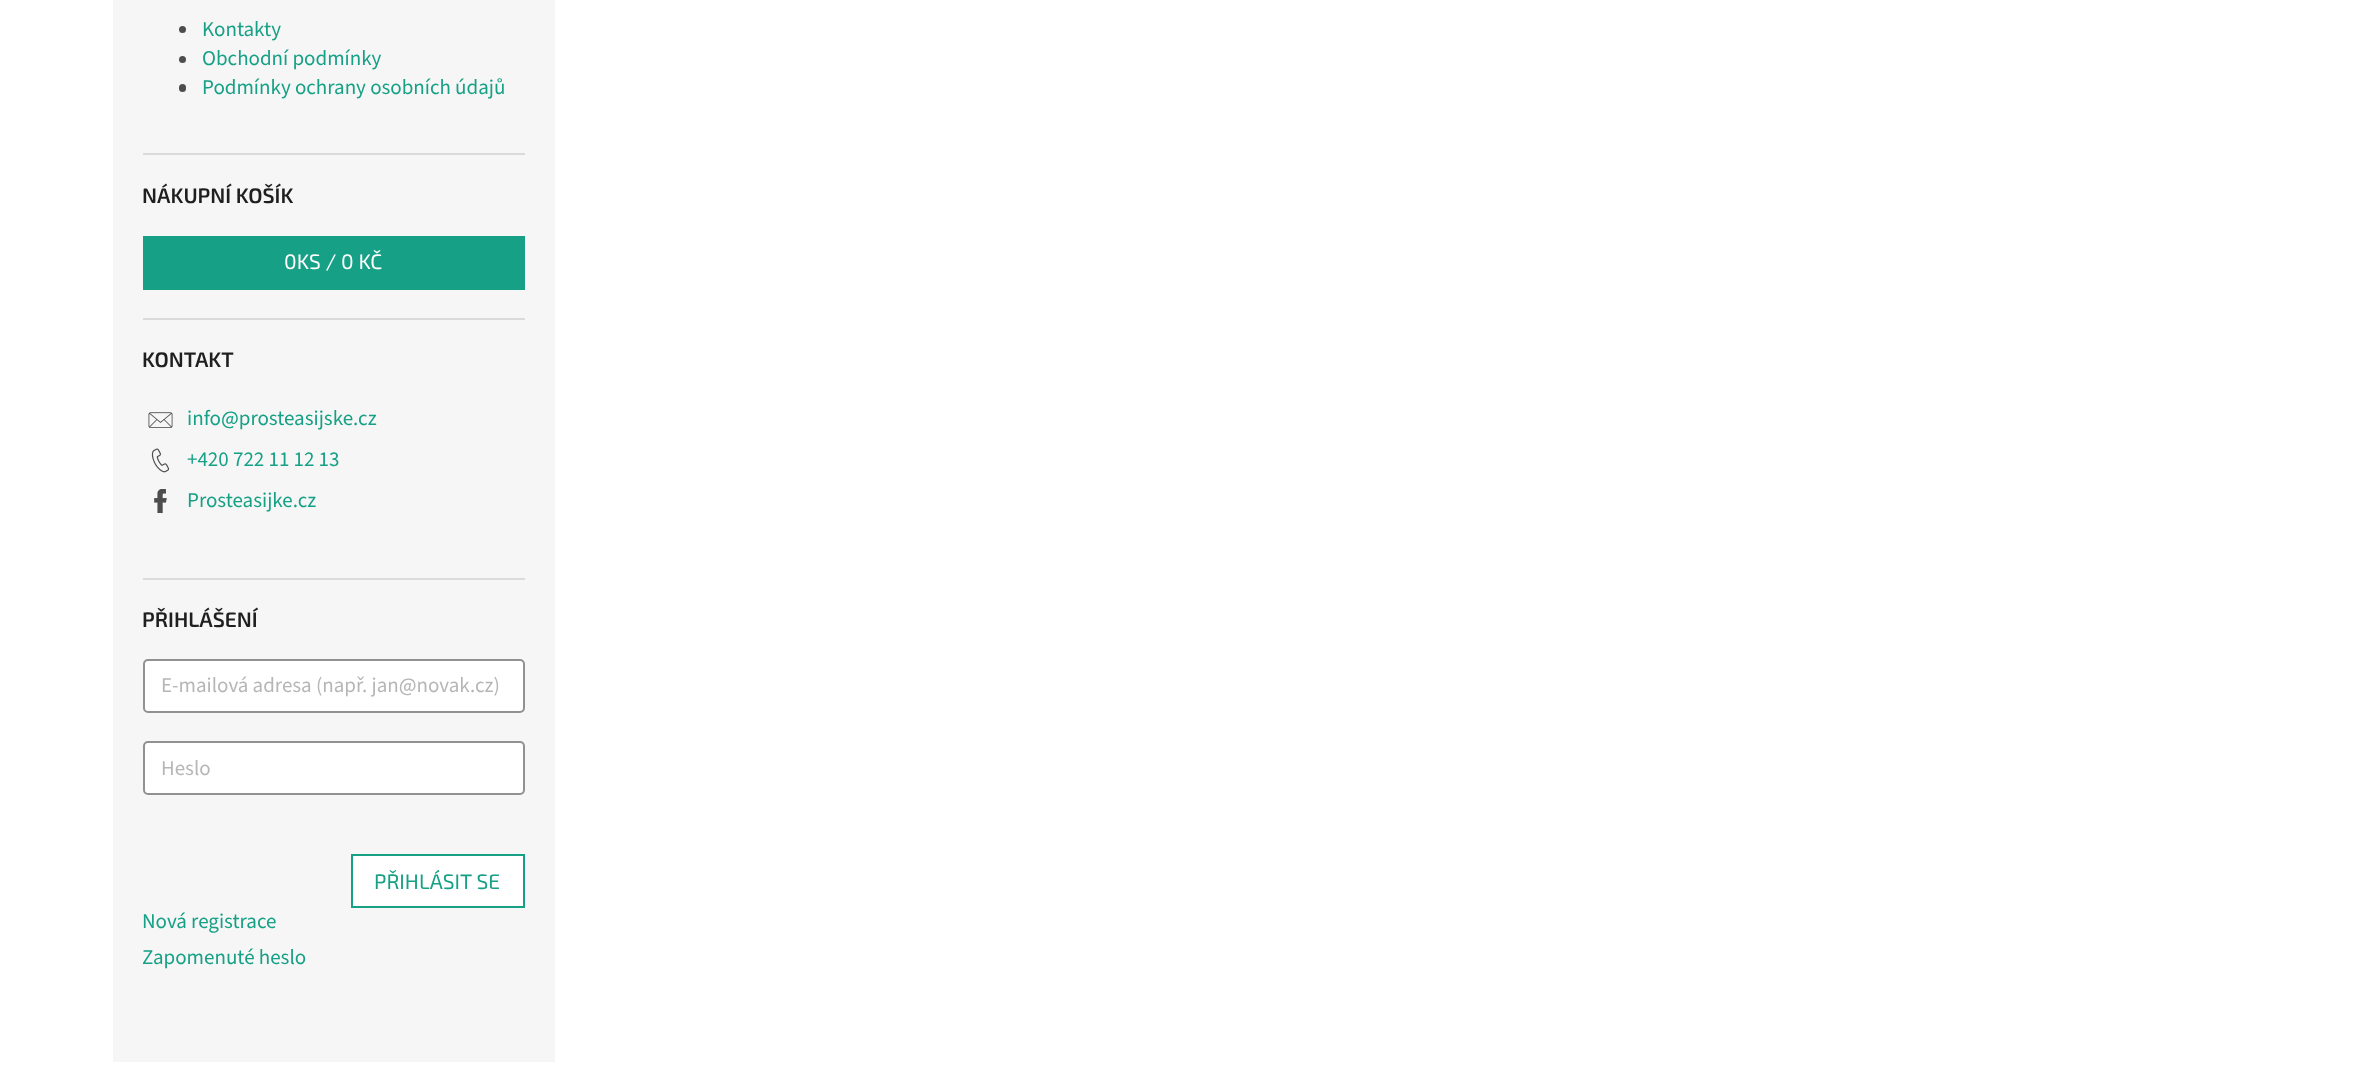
<svg xmlns="http://www.w3.org/2000/svg" width="2373" height="1091" viewBox="0 0 2373 1091">
  <style>
    .t1 { font: 21px 'Source Sans 3'; fill: #16a085; }
    .t2 { font: 600 21px 'Exo 2'; fill: #1f1f1f; }
    .t3 { font: 21px 'Exo 2'; fill: #fff; }
    .t4 { font: 21px 'Source Sans 3'; fill: #b6b6b6; }
    .t5 { font: 21px 'Exo 2'; fill: #16a085; }
  </style>
  <rect width="100%" height="100%" fill="#fff"/>
  <rect x="113" y="0" width="442" height="1062" fill="#f6f6f6"/>
  <rect x="143" y="153" width="382" height="2" fill="#dadada"/>
  <circle cx="182.5" cy="29.5" r="3.5" fill="#4d4d4d"/>
  <text x="202" y="36" class="t1">Kontakty</text>
  <circle cx="182.5" cy="59.5" r="3.5" fill="#4d4d4d"/>
  <text x="202" y="65" class="t1">Obchodní podmínky</text>
  <rect x="179" y="84" width="7" height="8" rx="3.5" fill="#4d4d4d"/>
  <text x="202" y="94" class="t1">Podmínky ochrany osobních údajů</text>
  <rect x="143" y="318" width="382" height="2" fill="#dadada"/>
  <text x="142" y="203" class="t2">NÁKUPNÍ KOŠÍK</text>
  <rect x="143" y="236" width="382" height="54" fill="#16a085"/>
  <text x="284" y="269" class="t3">0KS / 0 KČ</text>
  <rect x="143" y="578" width="382" height="2" fill="#dadada"/>
  <text x="142" y="367" class="t2">KONTAKT</text>
  <image x="148" y="412" width="25" height="16" href="images/1.png"/>
  <text x="187" y="425" class="t1">info@prosteasijske.cz</text>
  <image x="151" y="448" width="19" height="25" href="images/2.png"/>
  <text x="187" y="466" class="t1">+420 722 11 12 13</text>
  <image x="154" y="489" width="13" height="25" href="images/3.png"/>
  <text x="187" y="507" class="t1">Prosteasijke.cz</text>
  <text x="142" y="627" class="t2">PŘIHLÁŠENÍ</text>
  <rect x="144" y="660" width="380" height="52" rx="4" fill="#fff" stroke="#919191" stroke-width="2"/>
  <text x="161" y="692" class="t4">E-mailová adresa (např. jan@novak.cz)</text>
  <rect x="144" y="742" width="380" height="52" rx="4" fill="#fff" stroke="#919191" stroke-width="2"/>
  <text x="161" y="775" class="t4">Heslo</text>
  <rect x="352" y="855" width="172" height="52" fill="#fff" stroke="#16a085" stroke-width="2"/>
  <text x="374" y="889" class="t5">PŘIHLÁSIT SE</text>
  <text x="142" y="928" class="t1">Nová registrace</text>
  <text x="142" y="964" class="t1">Zapomenuté heslo</text>
</svg>
